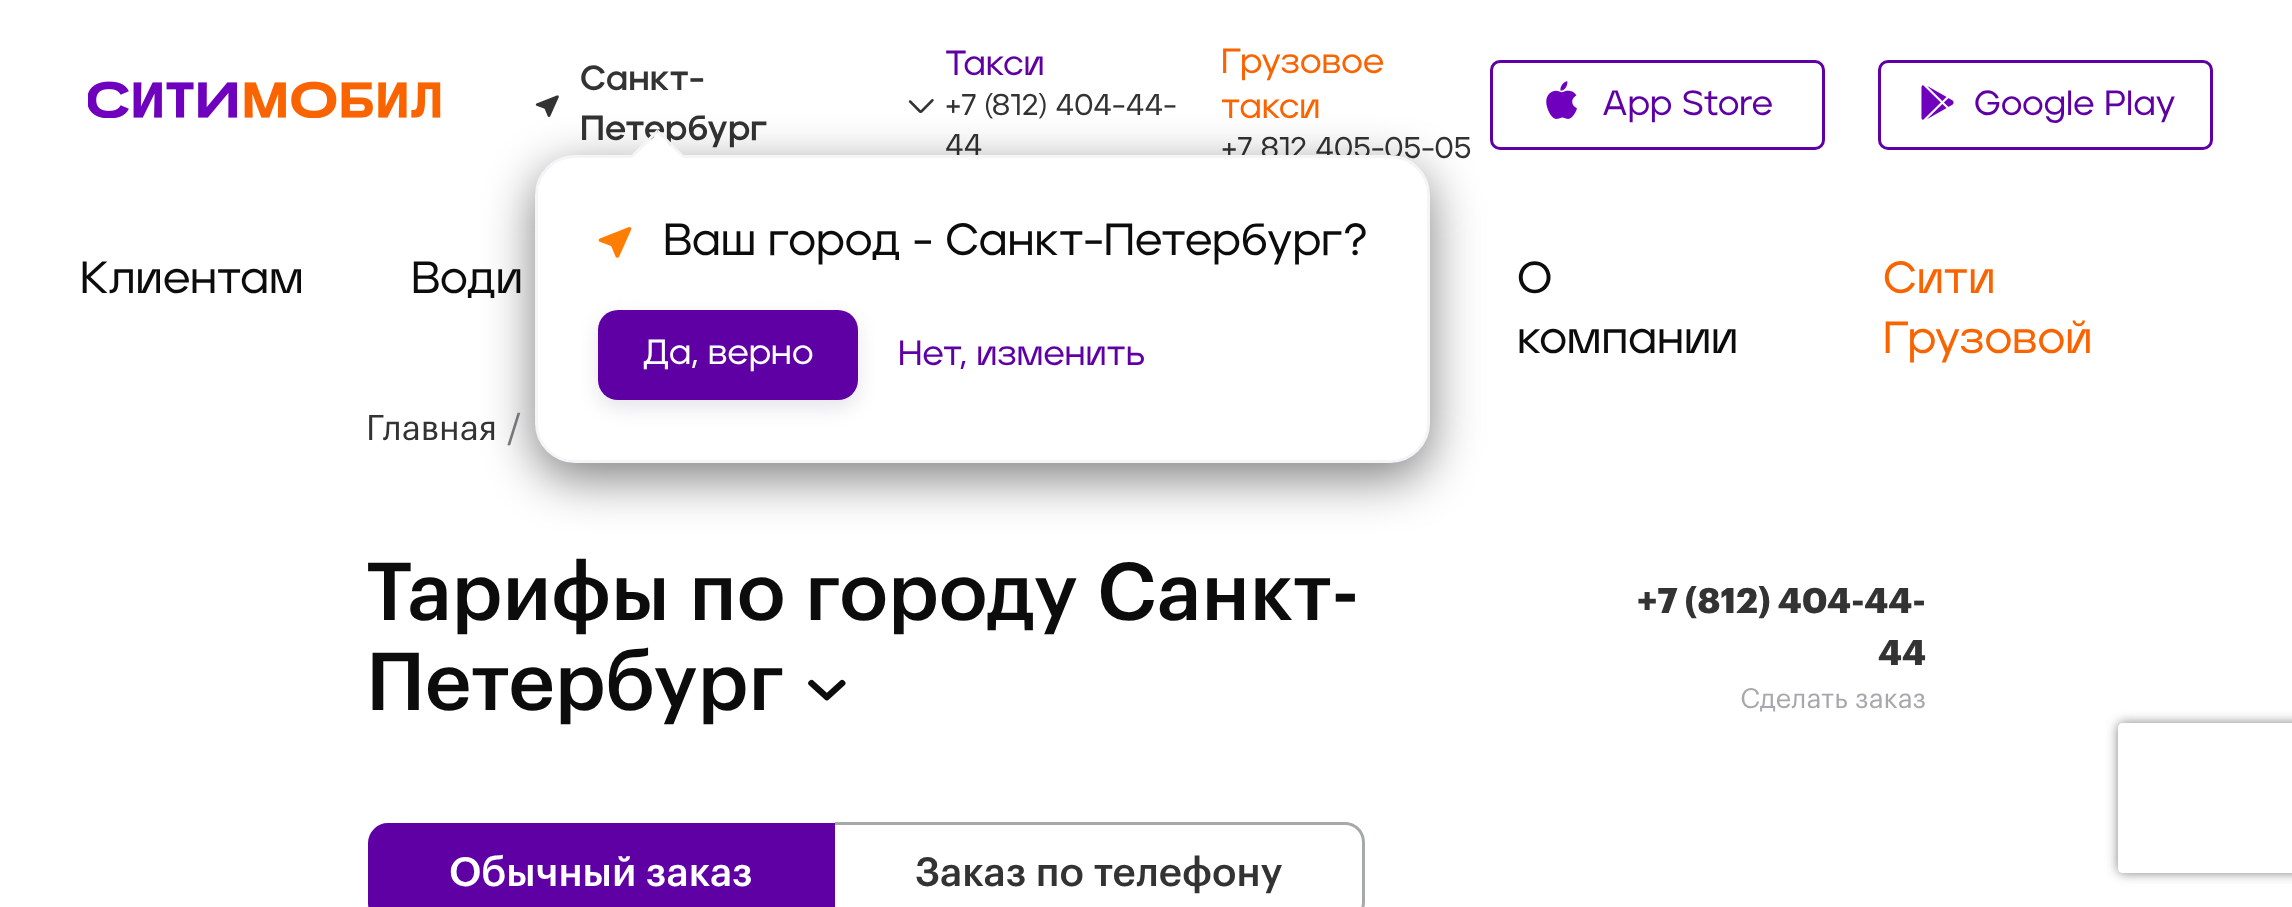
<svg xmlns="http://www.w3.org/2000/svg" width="2292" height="907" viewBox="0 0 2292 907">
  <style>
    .t1 { font: 500 35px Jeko; fill: #5f00a5; }
    .t2 { font: 500 30px Jeko; fill: #333; }
    .t3 { font: 500 35px Jeko; fill: #fa6400; }
    .t4 { font: bold 35px Jeko; fill: #333; }
    .t5 { font: 500 45px Jeko; fill: #0c0c0c; }
    .t6 { font: 500 35px Jeko; fill: #fff; }
    .t7 { font: 500 45px Jeko; fill: #fa6400; }
    .t8 { font: 35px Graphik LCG; fill: #333; }
    .t9 { font: 35px Graphik LCG; fill: #76767a; }
    .t10 { font: 500 80px Graphik LCG; fill: #0c0c0c; }
    .t11 { font: bold 35px Graphik LCG; fill: #333; }
    .t12 { font: 27.5px Graphik LCG; fill: #a7a8ab; }
    .t13 { font: 500 40px Graphik LCG; fill: #fff; }
    .t14 { font: 500 40px Graphik LCG; fill: #333; }
  </style>
  <defs>
    <linearGradient id="g1" gradientUnits="userSpaceOnUse" x1="658" y1="133" x2="658" y2="186"><stop offset="0.5" stop-color="#fff"/><stop offset="0.5" stop-color="#fff" stop-opacity="0"/></linearGradient>
    <clipPath id="clip1"><path d="M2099 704H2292V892H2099ZM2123 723H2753C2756 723 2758 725 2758 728V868C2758 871 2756 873 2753 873H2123C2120 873 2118 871 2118 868V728C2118 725 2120 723 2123 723Z" clip-rule="evenodd"/></clipPath>
  </defs>
  <rect width="100%" height="100%" fill="#fff"/>
  <image x="88" y="81" width="353" height="37" href="images/1.png"/>
  <text x="945" y="75" class="t1">Такси</text>
  <text x="945" y="115" class="t2">+7 (812) 404-44-</text>
  <text x="945" y="155" class="t2">44</text>
  <text x="1221" y="73" class="t3">Грузовое</text>
  <text x="1221" y="118" class="t3">такси</text>
  <text x="1221" y="158" class="t2">+7 812 405-05-05</text>
  <image x="535" y="95" width="24" height="22" href="images/2.png"/>
  <text x="580" y="90" class="t4">Санкт-</text>
  <text x="580" y="140" class="t4">Петербург</text>
  <image x="908" y="99" width="26" height="14" href="images/3.png"/>
  <rect x="1491.5" y="61.5" width="332" height="87" rx="8.5" fill="none" stroke="#5f00a5" stroke-width="3"/>
  <rect x="535" y="170" width="895" height="308" rx="40" fill="#00000080" filter="blur(25px)"/>
  <rect x="536.5" y="156.5" width="892" height="305" rx="38.5" fill="#fff" stroke="#f5f5f7" stroke-width="3"/>
  <path d="M631 155.5L657.5 129V133L634.5 155.5Z" fill="#f5f5f7"/>
  <path d="M657.5 129L684 155.5H680.5L657.5 133Z" fill="#f5f5f7"/>
  <path d="M684 159L658 186L631 159L658 133Z" fill="url(#g1)"/>
  <image x="598" y="227" width="34" height="31" href="images/4.png"/>
  <text x="663" y="255" class="t5">Ваш город - Санкт-Петербург?</text>
  <rect x="598" y="318" width="260" height="90" rx="20" fill="#e5e5eb" filter="blur(10px)"/>
  <rect x="598" y="310" width="260" height="90" rx="20" fill="#5f00a5"/>
  <text x="643" y="364" class="t6">Да, верно</text>
  <text x="898" y="365" class="t1">Нет, изменить</text>
  <image x="1546" y="81" width="31" height="38" href="images/5.png"/>
  <text x="1602" y="115" class="t1">App Store</text>
  <rect x="1879.5" y="61.5" width="332" height="87" rx="8.5" fill="none" stroke="#5f00a5" stroke-width="3"/>
  <image x="1921" y="85" width="33" height="35" href="images/6.png"/>
  <text x="1974" y="115" class="t1">Google Play</text>
  <text x="80" y="293" class="t5">Клиентам</text>
  <text x="411" y="293" class="t5">Води</text>
  <text x="1517" y="293" class="t5">О</text>
  <text x="1517" y="353" class="t5">компании</text>
  <text x="1883" y="293" class="t7">Сити</text>
  <text x="1883" y="353" class="t7">Грузовой</text>
  <text x="366" y="440" class="t8">Главная</text>
  <text x="507" y="440" class="t9">/</text>
  <text x="366" y="620" class="t10">Тарифы по городу Санкт-</text>
  <text x="366" y="710" class="t10">Петербург</text>
  <image x="808" y="679" width="38" height="22" href="images/7.png"/>
  <text x="1637" y="613" class="t11">+7 (812) 404-44-</text>
  <text x="1878" y="665" class="t11">44</text>
  <text x="1740" y="708" class="t12">Сделать заказ</text>
  <path d="M388 824.5H833.5V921.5H388C378 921.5 369.5 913 369.5 903V843C369.5 833 378 824.5 388 824.5Z" fill="#5f00a5" stroke="#5f00a5" stroke-width="3"/>
  <text x="449" y="886" class="t13">Обычный заказ</text>
  <path d="M835 822H1345C1356 822 1365 831 1365 842V902C1365 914 1356 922 1345 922H835ZM835 825H1345C1355 825 1362 833 1362 842V902C1362 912 1355 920 1345 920H835Z" fill="#a7a8ab" fill-rule="evenodd"/>
  <text x="915" y="886" class="t14">Заказ по телефону</text>
  <g clip-path="url(#clip1)">
    <rect x="2118" y="723" width="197" height="150" rx="5" fill="#808080" filter="blur(6px)"/>
  </g>
</svg>
